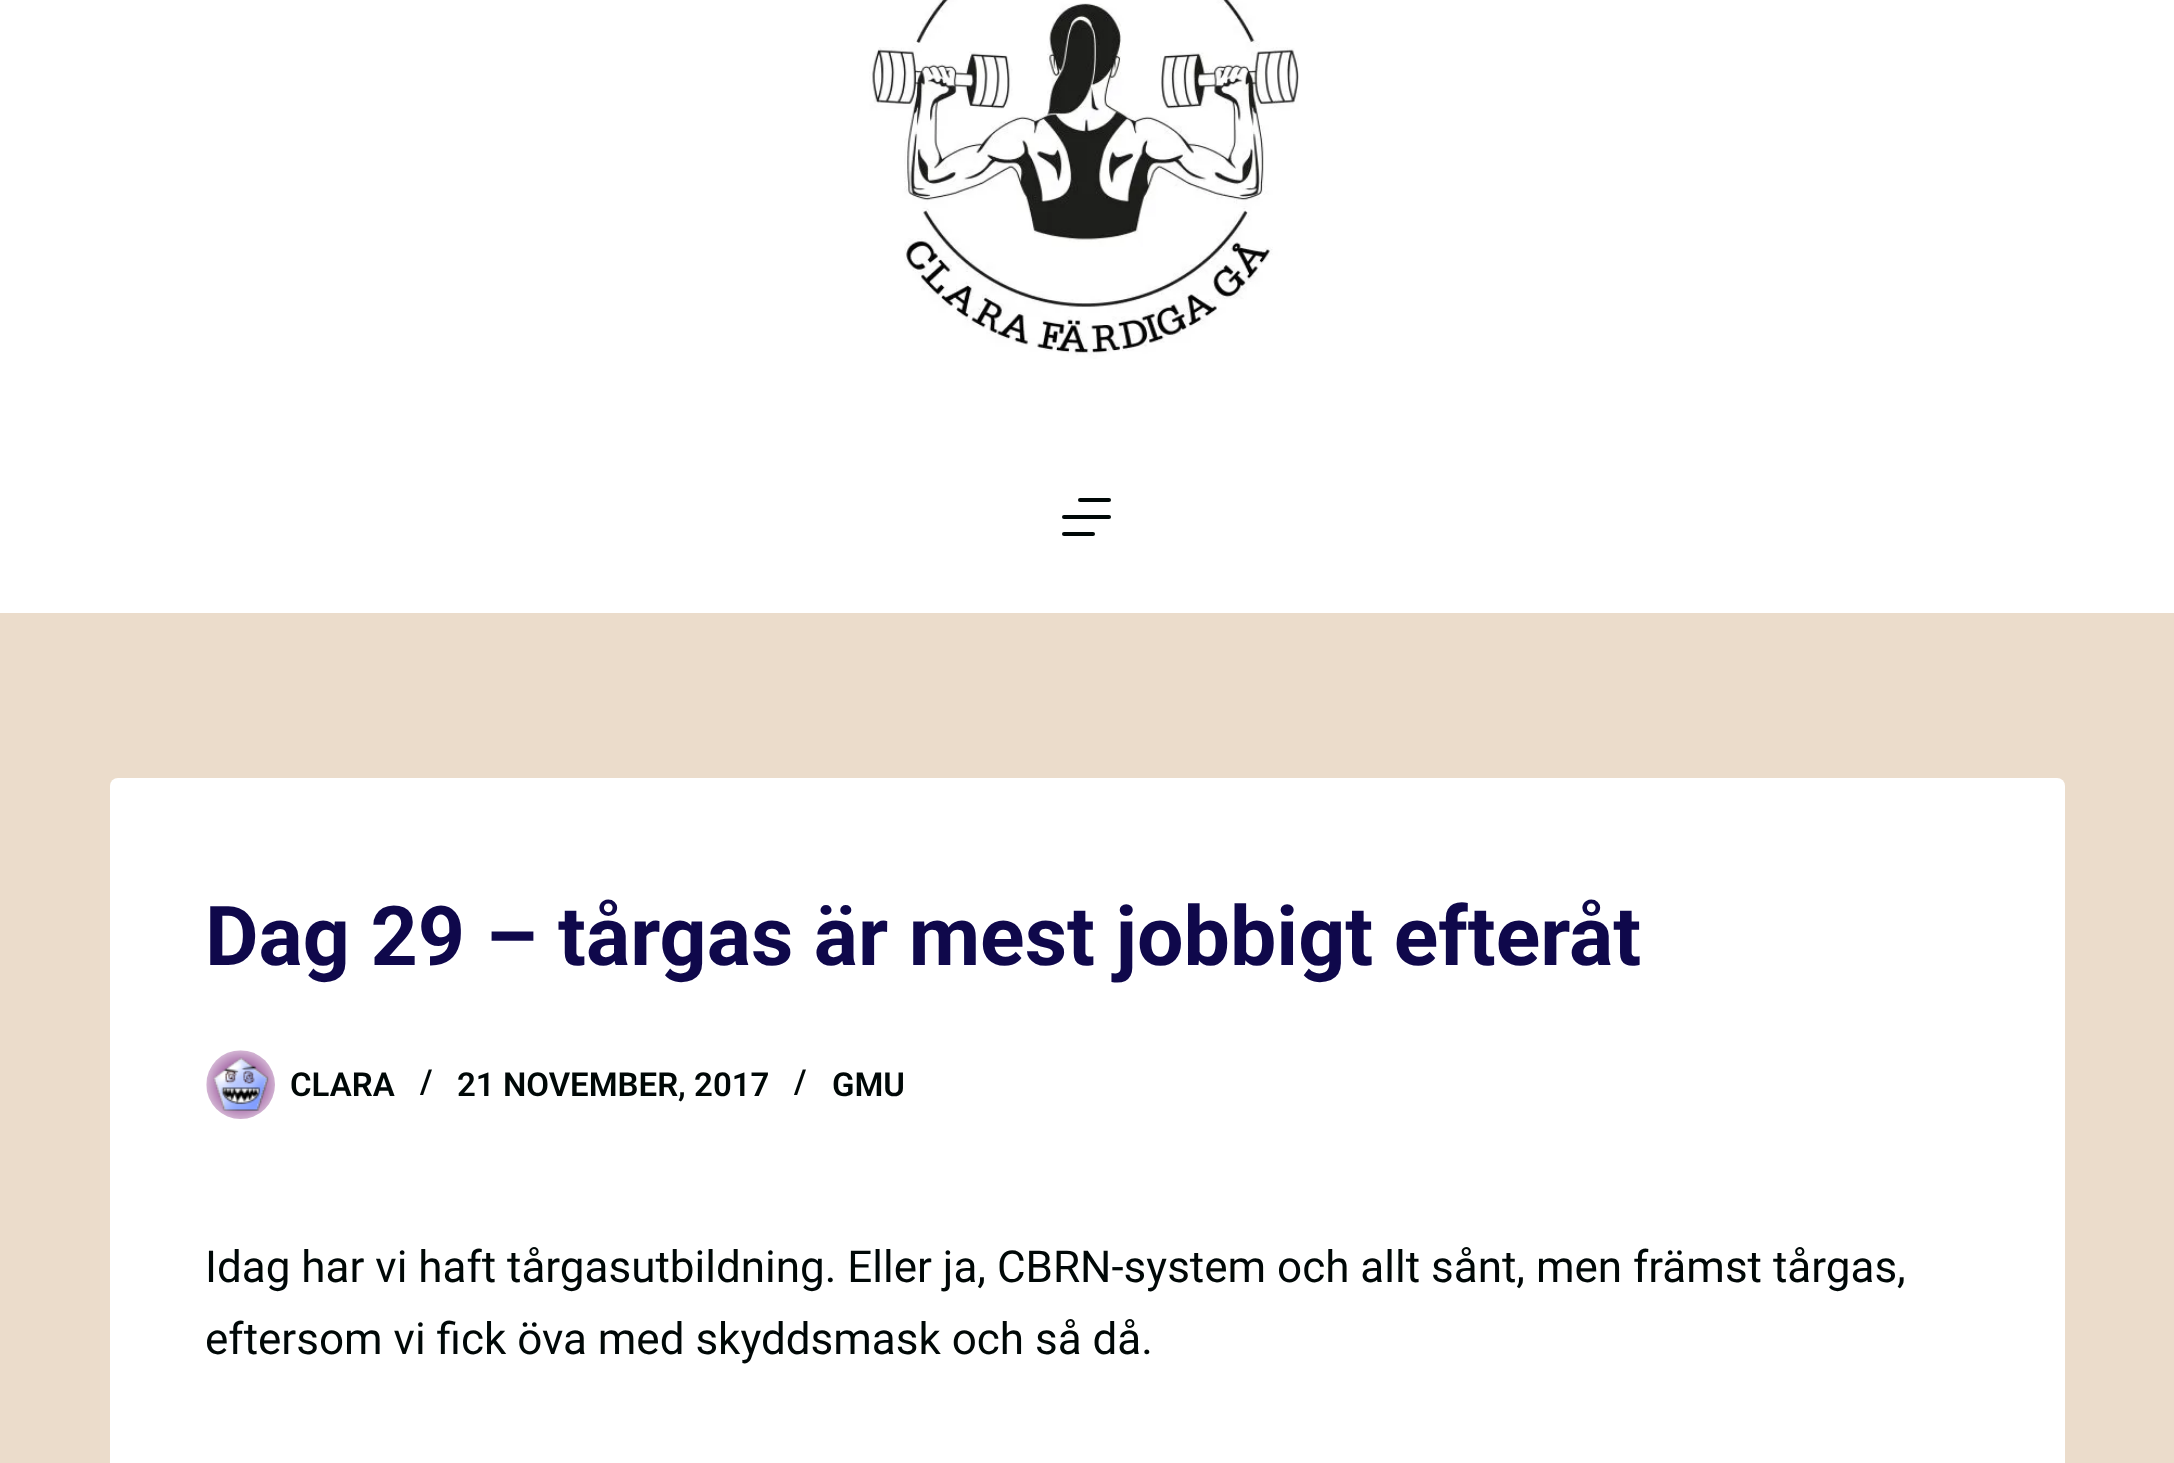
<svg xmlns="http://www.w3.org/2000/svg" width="2174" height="1463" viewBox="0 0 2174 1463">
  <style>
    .t1 { font: bold 82.5px Roboto; fill: #0f084b; }
    .t2 { font: 600 33px Roboto; fill: #000807; }
    .t3 { font: 44px Roboto; fill: #000807; }
  </style>
  <rect width="100%" height="100%" fill="#ebdccb"/>
  <rect x="0" y="0" width="2174" height="613" fill="#fff"/>
  <rect x="1078" y="498" width="33" height="4" rx="2" fill="#000807"/>
  <rect x="1062" y="515" width="49" height="4" rx="2" fill="#000807"/>
  <rect x="1062" y="532" width="33" height="4" rx="2" fill="#000807"/>
  <image x="869" y="0" width="430" height="359" href="images/1.png"/>
  <rect x="110" y="778" width="1955" height="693" rx="8" fill="#fff"/>
  <text x="205" y="965" class="t1">Dag 29 – tårgas är mest jobbigt efteråt</text>
  <image x="206" y="1050" width="69" height="69" href="images/2.png"/>
  <text x="290" y="1096" class="t2">CLARA</text>
  <text x="420" y="1093" class="t2">/</text>
  <text x="457" y="1096" class="t2">21 NOVEMBER, 2017</text>
  <text x="794" y="1093" class="t2">/</text>
  <text x="832" y="1096" class="t2">GMU</text>
  <text x="205" y="1282" class="t3">Idag har vi haft tårgasutbildning. Eller ja, CBRN-system och allt sånt, men främst tårgas,</text>
  <text x="205" y="1354" class="t3">eftersom vi fick öva med skyddsmask och så då.</text>
</svg>
